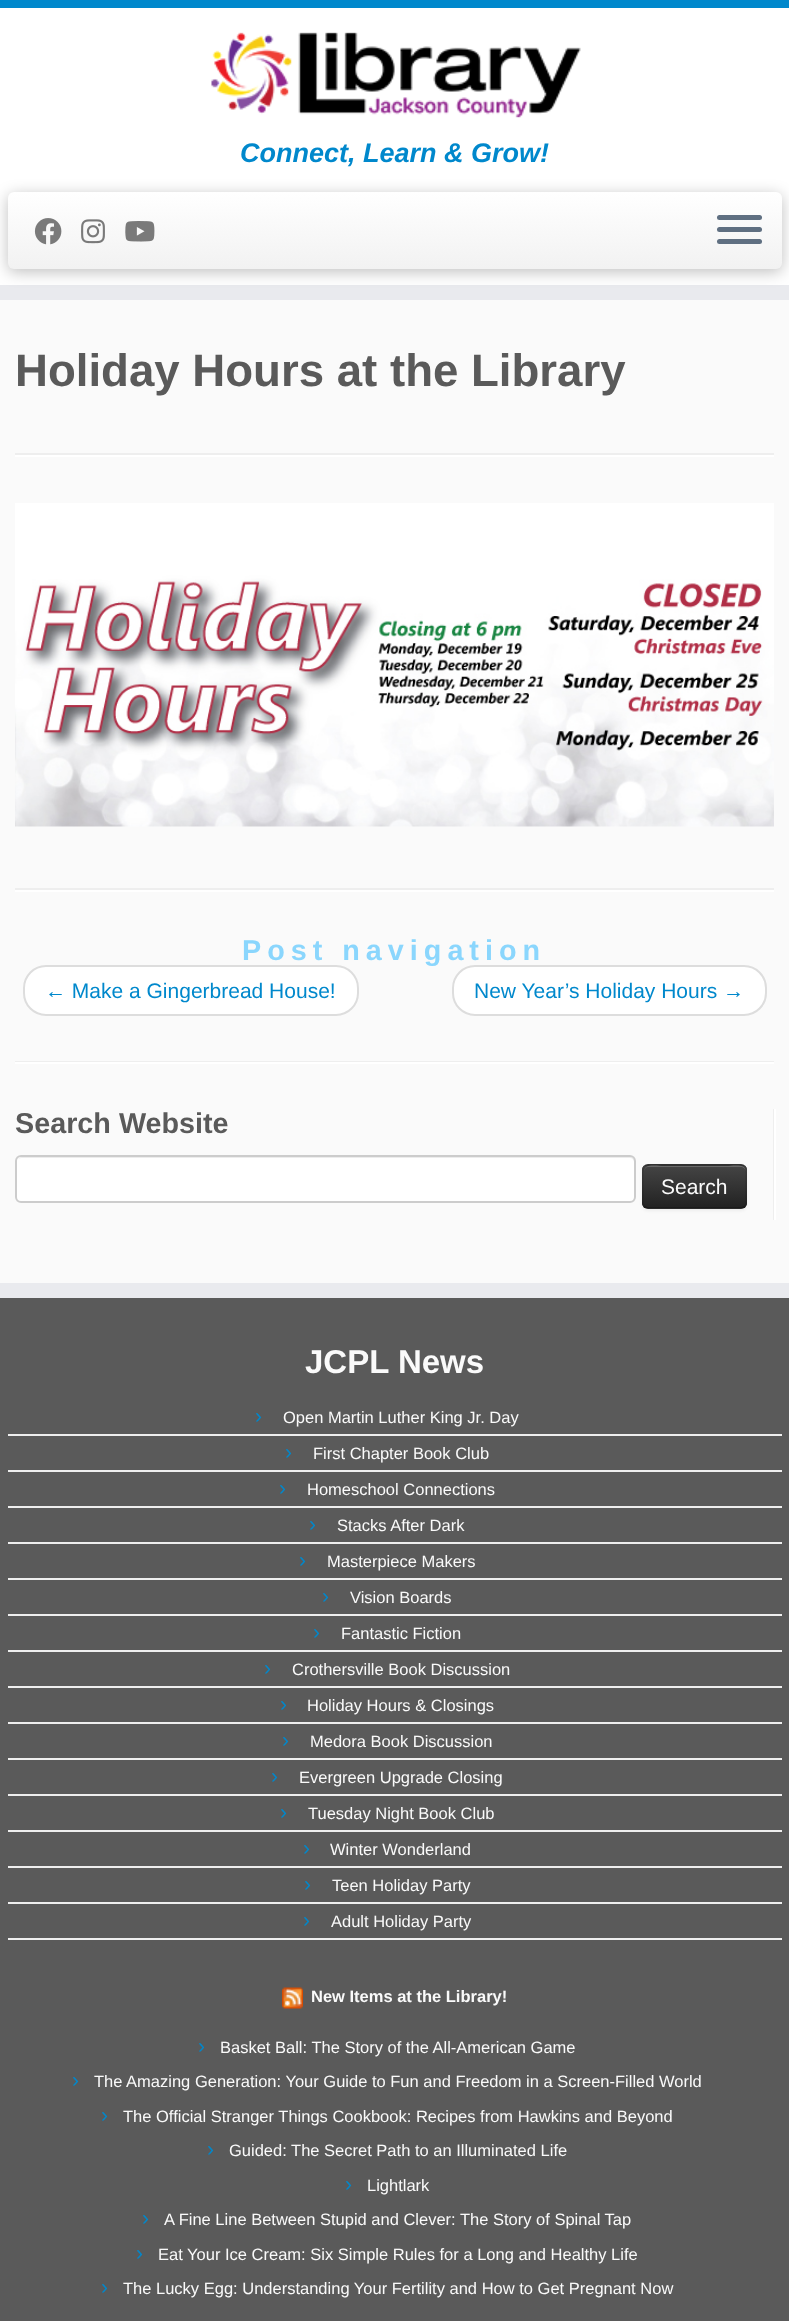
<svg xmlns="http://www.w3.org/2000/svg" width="789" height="2321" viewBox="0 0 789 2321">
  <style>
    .t1 { font: italic bold 27px Liberation Sans; fill: #08c; }
    .t2 { font: bold 45.6px Liberation Sans; fill: #5a5a5a; }
    .t3 { font: bold 28.75px Liberation Sans; letter-spacing: 6px; fill: #8ad6fd; }
    .t4 { font: 21px Liberation Sans; fill: #08c; }
    .t5 { font: bold 28.75px Liberation Sans; fill: #5a5a5a; }
    .t6 { font: 21px Liberation Sans; fill: #fafafa; }
    .t7 { font: bold 33px Liberation Sans; fill: #fafafa; }
    .t8 { font: 16.5px Liberation Sans; fill: #fafafa; }
    .t9 { font: bold 16.5px Liberation Sans; fill: #fafafa; }
  </style>
  <defs>
    <linearGradient id="g1" gradientUnits="userSpaceOnUse" x1="395" y1="192" x2="395" y2="269"><stop offset="0" stop-color="#fff"/><stop offset="1" stop-color="#f2f2f2"/></linearGradient>
    <clipPath id="clip1"><rect x="642" y="1164" width="105" height="45" rx="6"/></clipPath>
    <linearGradient id="g2" gradientUnits="userSpaceOnUse" x1="695" y1="1166" x2="695" y2="1208"><stop offset="0" stop-color="#444"/><stop offset="1" stop-color="#222"/></linearGradient>
  </defs>
  <rect width="100%" height="100%" fill="#fafafa"/>
  <rect x="0" y="8" width="789" height="277" fill="#fff"/>
  <rect x="0" y="0" width="789" height="8" fill="#08c"/>
  <rect x="0" y="285" width="789" height="15" fill="#e9eaee"/>
  <image x="211" y="32" width="370" height="86" href="images/1.png"/>
  <text x="240" y="162" class="t1">Connect, Learn &amp; Grow!</text>
  <rect x="8" y="195" width="774" height="77" rx="6" fill="#00000040" filter="blur(7.5px)"/>
  <rect x="8" y="192" width="774" height="77" rx="6" fill="url(#g1)"/>
  <image x="34" y="218" width="28" height="27" href="images/2.png"/>
  <image x="81" y="219" width="24" height="25" href="images/3.png"/>
  <image x="125" y="221" width="30" height="21" href="images/4.png"/>
  <rect x="717" y="215" width="45" height="5" rx="2.5" fill="#5f6f81"/>
  <rect x="717" y="227" width="45" height="5" rx="2.5" fill="#5f6f81"/>
  <rect x="717" y="239" width="45" height="5" rx="2.5" fill="#5f6f81"/>
  <text x="15" y="386" class="t2">Holiday Hours at the Library</text>
  <rect x="15" y="453" width="759" height="2" fill="#eee"/>
  <rect x="15" y="455" width="759" height="2" fill="#fff"/>
  <image x="15" y="503" width="759" height="324" href="images/5.png"/>
  <rect x="15" y="888" width="759" height="2" fill="#eee"/>
  <rect x="15" y="890" width="759" height="2" fill="#fff"/>
  <rect x="24" y="966" width="334" height="49" rx="22" fill="#fff" stroke="#ddd" stroke-width="2"/>
  <rect x="453" y="966" width="313" height="49" rx="22" fill="#fff" stroke="#ddd" stroke-width="2"/>
  <text x="242" y="960" class="t3">Post navigation</text>
  <text x="45" y="998" class="t4">← Make a Gingerbread House!</text>
  <text x="474" y="998" class="t4">New Year’s Holiday Hours →</text>
  <rect x="15" y="1061" width="759" height="1" fill="#eee"/>
  <rect x="15" y="1062" width="759" height="2" fill="#fff"/>
  <rect x="773" y="1109" width="1" height="111" fill="#eee"/>
  <text x="15" y="1133" class="t5">Search Website</text>
  <rect x="15" y="1155" width="621" height="48" rx="6" fill="#fff"/>
  <path d="M21 1158H630C632 1158 634 1160 634 1162V1198L633 1201C634 1200 635 1198 635 1197V1162C635 1159 633 1157 630 1157H22C20 1157 19 1158 18 1159Z" fill="#ececec"/>
  <rect x="16" y="1156" width="619" height="46" rx="5" fill="none" stroke="#ccc" stroke-width="2"/>
  <rect x="642" y="1166" width="105" height="45" rx="6" fill="#0000000d" filter="blur(1.5px)"/>
  <rect x="642" y="1164" width="105" height="45" rx="6" fill="#363636"/>
  <g clip-path="url(#clip1)">
    <rect x="642" y="1166" width="105" height="42" fill="url(#g2)"/>
  </g>
  <path d="M648 1167H741C743 1167 746 1169 746 1172C746 1162 731 1166 726 1166H664C659 1166 644 1162 644 1172C644 1169 646 1167 648 1167Z" fill="#ffffff33"/>
  <path d="M744.5 1206.5L741.5 1208H647.5L644.5 1206.5" fill="none" stroke="#00000040" stroke-width="1.5"/>
  <path d="M644.5 1206.5C642 1204.5 643 1200.5 643 1197.5V1186.5C643 1162.5 639 1165 663.5 1165H725.5C750 1165 746 1162.5 746 1186.5V1197.5C746 1200.5 747 1204.5 744.5 1206.5" fill="none" stroke="#0000001a" stroke-width="1.5"/>
  <text x="661" y="1194" class="t6">Search</text>
  <rect x="774" y="1109" width="2" height="111" fill="#fff"/>
  <rect x="0" y="1298" width="789" height="1023" fill="#5a5a5a"/>
  <rect x="0" y="1283" width="789" height="15" fill="#e9eaee"/>
  <text x="305" y="1373" class="t7">JCPL News</text>
  <rect x="8" y="1434" width="774" height="2" fill="#eee"/>
  <text x="255" y="1423" class="t4">›</text>
  <text x="283" y="1423" class="t8">Open Martin Luther King Jr. Day</text>
  <rect x="8" y="1470" width="774" height="2" fill="#eee"/>
  <text x="285" y="1459" class="t4">›</text>
  <text x="313" y="1459" class="t8">First Chapter Book Club</text>
  <rect x="8" y="1506" width="774" height="2" fill="#eee"/>
  <text x="279" y="1495" class="t4">›</text>
  <text x="307" y="1495" class="t8">Homeschool Connections</text>
  <rect x="8" y="1542" width="774" height="2" fill="#eee"/>
  <text x="309" y="1531" class="t4">›</text>
  <text x="337" y="1531" class="t8">Stacks After Dark</text>
  <rect x="8" y="1578" width="774" height="2" fill="#eee"/>
  <text x="299" y="1567" class="t4">›</text>
  <text x="327" y="1567" class="t8">Masterpiece Makers</text>
  <rect x="8" y="1614" width="774" height="2" fill="#eee"/>
  <text x="322" y="1603" class="t4">›</text>
  <text x="350" y="1603" class="t8">Vision Boards</text>
  <rect x="8" y="1650" width="774" height="2" fill="#eee"/>
  <text x="313" y="1639" class="t4">›</text>
  <text x="341" y="1639" class="t8">Fantastic Fiction</text>
  <rect x="8" y="1686" width="774" height="2" fill="#eee"/>
  <text x="264" y="1675" class="t4">›</text>
  <text x="292" y="1675" class="t8">Crothersville Book Discussion</text>
  <rect x="8" y="1722" width="774" height="2" fill="#eee"/>
  <text x="280" y="1711" class="t4">›</text>
  <text x="307" y="1711" class="t8">Holiday Hours &amp; Closings</text>
  <rect x="8" y="1758" width="774" height="2" fill="#eee"/>
  <text x="282" y="1747" class="t4">›</text>
  <text x="310" y="1747" class="t8">Medora Book Discussion</text>
  <rect x="8" y="1794" width="774" height="2" fill="#eee"/>
  <text x="271" y="1783" class="t4">›</text>
  <text x="299" y="1783" class="t8">Evergreen Upgrade Closing</text>
  <rect x="8" y="1830" width="774" height="2" fill="#eee"/>
  <text x="280" y="1819" class="t4">›</text>
  <text x="308" y="1819" class="t8">Tuesday Night Book Club</text>
  <rect x="8" y="1866" width="774" height="2" fill="#eee"/>
  <text x="303" y="1855" class="t4">›</text>
  <text x="330" y="1855" class="t8">Winter Wonderland</text>
  <rect x="8" y="1902" width="774" height="2" fill="#eee"/>
  <text x="304" y="1891" class="t4">›</text>
  <text x="332" y="1891" class="t8">Teen Holiday Party</text>
  <rect x="8" y="1938" width="774" height="2" fill="#eee"/>
  <text x="303" y="1927" class="t4">›</text>
  <text x="331" y="1927" class="t8">Adult Holiday Party</text>
  <image x="282" y="1987" width="21" height="22" href="images/6.png"/>
  <text x="311" y="2002" class="t9">New Items at the Library!</text>
  <text x="198" y="2053" class="t4">›</text>
  <text x="220" y="2053" class="t8">Basket Ball: The Story of the All-American Game</text>
  <text x="72" y="2087" class="t4">›</text>
  <text x="94" y="2087" class="t8">The Amazing Generation: Your Guide to Fun and Freedom in a Screen-Filled World</text>
  <text x="101" y="2122" class="t4">›</text>
  <text x="123" y="2122" class="t8">The Official Stranger Things Cookbook: Recipes from Hawkins and Beyond</text>
  <text x="207" y="2156" class="t4">›</text>
  <text x="229" y="2156" class="t8">Guided: The Secret Path to an Illuminated Life</text>
  <text x="345" y="2191" class="t4">›</text>
  <text x="367" y="2191" class="t8">Lightlark</text>
  <text x="142" y="2225" class="t4">›</text>
  <text x="164" y="2225" class="t8">A Fine Line Between Stupid and Clever: The Story of Spinal Tap</text>
  <text x="136" y="2260" class="t4">›</text>
  <text x="158" y="2260" class="t8">Eat Your Ice Cream: Six Simple Rules for a Long and Healthy Life</text>
  <text x="101" y="2294" class="t4">›</text>
  <text x="123" y="2294" class="t8">The Lucky Egg: Understanding Your Fertility and How to Get Pregnant Now</text>
</svg>
